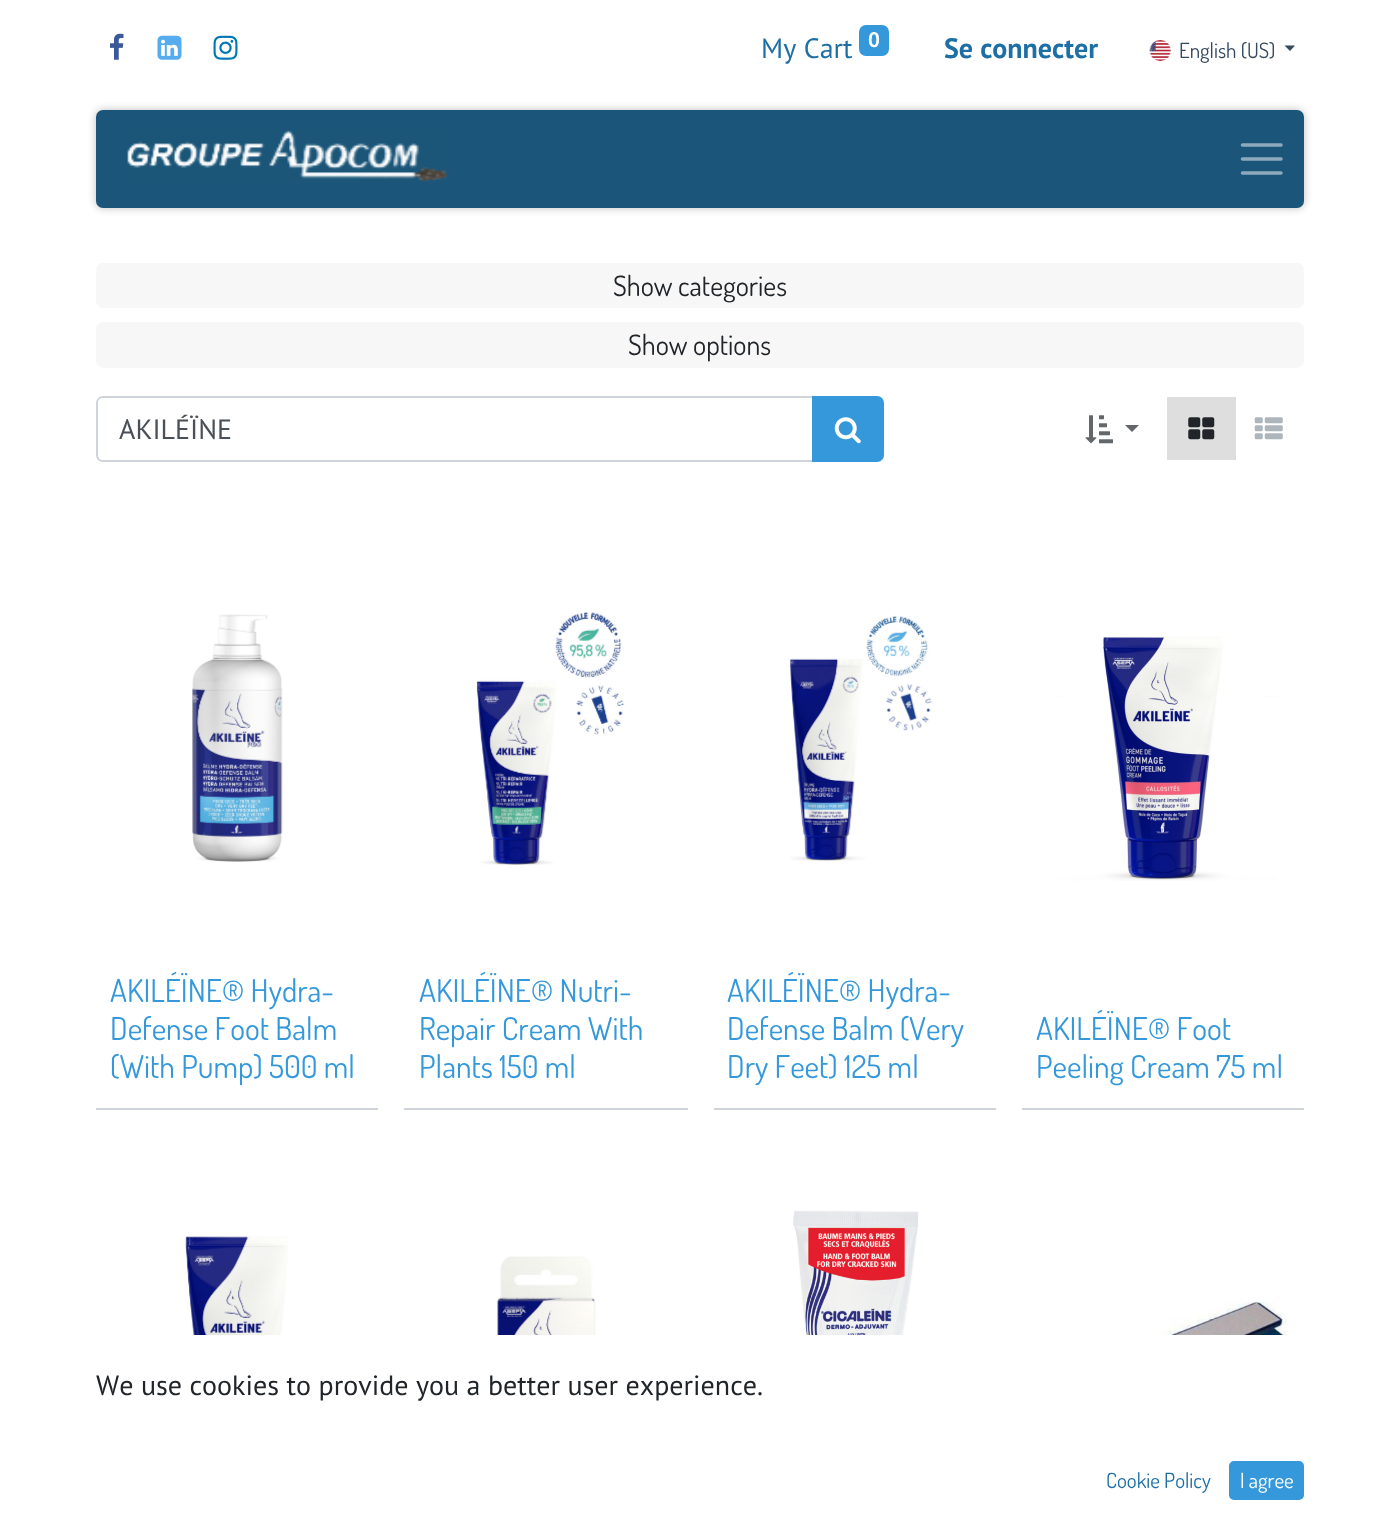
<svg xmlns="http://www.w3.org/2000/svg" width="1400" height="1527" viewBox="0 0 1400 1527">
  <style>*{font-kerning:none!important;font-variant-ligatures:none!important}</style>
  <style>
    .t1 { font: 28px PT Sans; fill: #1d6fa5; }
    .t2 { font: bold 21px PT Sans; fill: #fff; }
    .t3 { font: bold 28px PT Sans; fill: #1d6fa5; }
    .t4 { font: 21px Dosis; fill: #34495e; }
    .t5 { font: 28px Dosis; fill: #212529; }
    .t6 { font: 28px PT Sans; fill: #495057; }
    .t7 { font: 31.5px Dosis; fill: #3498db; }
    .t8 { font: 28px PT Sans; fill: #212529; }
    .t9 { font: 21px Dosis; fill: #1d6fa5; }
    .t10 { font: 21px Dosis; fill: #fff; }
  </style>
  <rect width="100%" height="100%" fill="#fff"/>
  <image x="110" y="33" width="14" height="27" href="images/1.png"/>
  <image x="157" y="35" width="25" height="25" href="images/2.png"/>
  <image x="213" y="35" width="25" height="25" href="images/3.png"/>
  <text x="761" y="58" class="t1">My Cart</text>
  <rect x="859" y="25" width="30" height="31" rx="7" fill="#3498db"/>
  <text x="868" y="47" class="t2">0</text>
  <text x="944" y="58" class="t3">Se connecter</text>
  <image x="1149" y="40" width="22" height="21" href="images/4.png"/>
  <text x="1179" y="58" class="t4">English (US)</text>
  <path d="M1284.5 45.5H1295L1290 51Z" fill="#34495e"/>
  <rect x="96" y="110" width="1208" height="98" rx="7" fill="#00000040" filter="blur(4.5px)"/>
  <rect x="96" y="110" width="1208" height="98" rx="7" fill="#1b557a"/>
  <image x="127" y="130" width="321" height="52" href="images/5.png"/>
  <path d="M1242.5 145H1281M1242.5 159H1281M1242.5 173H1281" fill="none" stroke="#8daabd" stroke-width="3.5" stroke-linecap="round"/>
  <rect x="96" y="263" width="1208" height="45" rx="7" fill="#f7f7f7"/>
  <text x="613" y="296" class="t5">Show categories</text>
  <rect x="96" y="322" width="1208" height="46" rx="7" fill="#f7f7f7"/>
  <text x="628" y="355" class="t5">Show options</text>
  <path d="M103 397H813V461H103C99.5 461 97 458.5 97 455V403C97 399.5 99.5 397 103 397Z" fill="none" stroke="#ced4da" stroke-width="2"/>
  <text x="119" y="439" class="t6">AKILÉÏNE</text>
  <path d="M813 397H877C880.5 397 883 399.5 883 403V455C883 458.5 880.5 461 877 461H813Z" fill="#3498db" stroke="#3498db" stroke-width="2"/>
  <image x="834" y="417" width="27" height="27" href="images/6.png"/>
  <image x="1085" y="415" width="28" height="29" href="images/7.png"/>
  <path d="M1125 425H1139L1132 432Z" fill="#646669"/>
  <rect x="1167" y="397" width="69" height="63" fill="#dedede"/>
  <image x="1188" y="417" width="27" height="23" href="images/8.png"/>
  <image x="1254" y="417" width="29" height="23" href="images/9.png"/>
  <rect x="96" y="1108" width="282" height="2" fill="#ced4da"/>
  <image x="192" y="614" width="91" height="248" href="images/10.png"/>
  <text x="110" y="1002" class="t7">AKILÉÏNE® Hydra-</text>
  <text x="110" y="1040" class="t7">Defense Foot Balm</text>
  <text x="110" y="1078" class="t7">(With Pump) 500 ml</text>
  <rect x="404" y="1108" width="284" height="2" fill="#ced4da"/>
  <image x="476" y="612" width="149" height="253" href="images/11.png"/>
  <text x="419" y="1002" class="t7">AKILÉÏNE® Nutri-</text>
  <text x="419" y="1040" class="t7">Repair Cream With</text>
  <text x="419" y="1078" class="t7">Plants 150 ml</text>
  <rect x="714" y="1108" width="282" height="2" fill="#ced4da"/>
  <image x="790" y="615" width="143" height="246" href="images/12.png"/>
  <text x="727" y="1002" class="t7">AKILÉÏNE® Hydra-</text>
  <text x="727" y="1040" class="t7">Defense Balm (Very</text>
  <text x="727" y="1078" class="t7">Dry Feet) 125 ml</text>
  <rect x="1022" y="1108" width="282" height="2" fill="#ced4da"/>
  <image x="1055" y="636" width="223" height="245" href="images/13.png"/>
  <text x="1036" y="1040" class="t7">AKILÉÏNE® Foot</text>
  <text x="1036" y="1078" class="t7">Peeling Cream 75 ml</text>
  <image x="185" y="1236" width="103" height="99" href="images/14.png"/>
  <image x="487" y="1256" width="118" height="79" href="images/15.png"/>
  <image x="793" y="1210" width="126" height="125" href="images/16.png"/>
  <image x="1029" y="1300" width="268" height="35" href="images/17.png"/>
  <text x="96" y="1395" class="t8">We use cookies to provide you a better user experience.</text>
  <text x="1106" y="1488" class="t9">Cookie Policy</text>
  <rect x="1230" y="1462" width="73" height="37" rx="4" fill="#3498db" stroke="#3498db" stroke-width="2"/>
  <text x="1240" y="1488" class="t10">I agree</text>
</svg>
